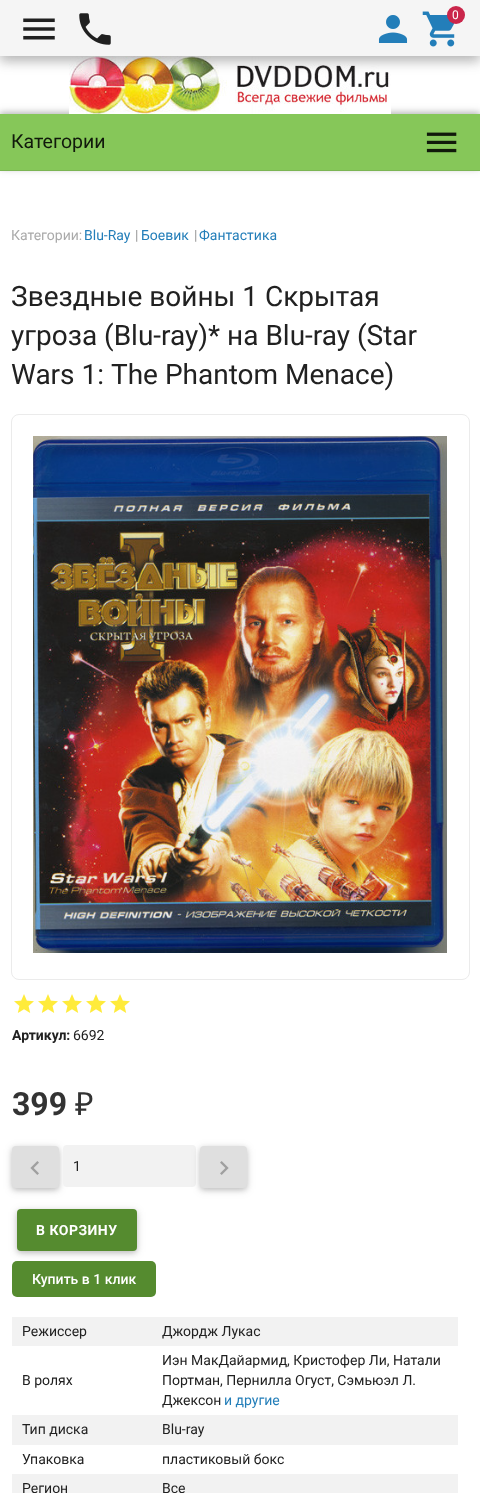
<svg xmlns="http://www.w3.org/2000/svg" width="480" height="1493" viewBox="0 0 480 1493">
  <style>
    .t1 { font: 12px Roboto; fill: #fff; }
    .t2 { font: 19.5px Roboto; fill: #111a0c; }
    .t3 { font: 14px Roboto; fill: #aaa; }
    .t4 { font: 14px Roboto; fill: #237eb9; }
    .t5 { font: 14px Roboto; fill: #999; }
    .t6 { font: 28px Roboto; fill: #212121; }
    .t7 { font: bold 14px Roboto; fill: #212121; }
    .t8 { font: 14px Roboto; fill: #212121; }
    .t9 { font: bold 32px Roboto; fill: #333; }
    .t10 { font: 32px Noto Sans; fill: #333; }
    .t11 { font: bold 14px Roboto; letter-spacing: 0.5px; fill: #fff; }
    .t12 { font: 500 14px Roboto; fill: #fff; }
  </style>
  <rect width="100%" height="100%" fill="#fff"/>
  <rect x="0" y="112" width="480" height="57" fill="#0000001f" filter="blur(5px)"/>
  <rect x="0" y="112" width="480" height="57" fill="#00000029" filter="blur(2.5px)"/>
  <image x="69" y="56" width="322" height="58" href="images/5.png"/>
  <rect x="0" y="4" width="480" height="56" fill="#00000026" filter="blur(7.5px)"/>
  <rect x="0" y="5" width="480" height="56" fill="#0000002e" filter="blur(5.5px)"/>
  <rect x="0" y="0" width="480" height="56" fill="#f5f5f5"/>
  <image x="23" y="18" width="32" height="22" href="images/1.png"/>
  <image x="79" y="13" width="32" height="32" href="images/2.png"/>
  <image x="378" y="15" width="30" height="28" href="images/3.png"/>
  <image x="422" y="11" width="33" height="36" href="images/4.png"/>
  <circle cx="456" cy="15" r="9" fill="#ca264b"/>
  <text x="452" y="19" class="t1">0</text>
  <rect x="0" y="114" width="480" height="56" fill="#86c759"/>
  <rect x="0" y="170" width="480" height="1" fill="#7cb554"/>
  <text x="11" y="148" class="t2">Категории</text>
  <image x="426" y="132" width="31" height="21" href="images/6.png"/>
  <text x="11" y="240" class="t3">Категории:</text>
  <text x="84" y="240" class="t4">Blu-Ray</text>
  <text x="135" y="240" class="t5">|</text>
  <text x="141" y="240" class="t4">Боевик</text>
  <text x="194" y="240" class="t5">|</text>
  <text x="199" y="240" class="t4">Фантастика</text>
  <text x="11" y="306" class="t6">Звездные войны 1 Скрытая</text>
  <text x="11" y="345" class="t6">угроза (Blu-ray)* на Blu-ray (Star</text>
  <text x="11" y="384" class="t6">Wars 1: The Phantom Menace)</text>
  <rect x="11.5" y="414.5" width="458" height="565" rx="7.5" fill="none" stroke="#ebebeb"/>
  <image x="33" y="436" width="414" height="517" href="images/7.png"/>
  <image x="14" y="994" width="20" height="19" href="images/8.png"/>
  <image x="38" y="994" width="20" height="19" href="images/8.png"/>
  <image x="62" y="994" width="20" height="19" href="images/8.png"/>
  <image x="86" y="994" width="20" height="19" href="images/8.png"/>
  <image x="110" y="994" width="20" height="19" href="images/8.png"/>
  <text x="12" y="1040" class="t7">Артикул:</text>
  <text x="73" y="1040" class="t8">6692</text>
  <text x="12" y="1115" class="t9">399</text>
  <text x="75" y="1115" class="t10">₽</text>
  <rect x="12" y="1148" width="47" height="42" rx="4" fill="#0000001f" filter="blur(5px)"/>
  <rect x="12" y="1148" width="47" height="42" rx="4" fill="#00000029" filter="blur(2.5px)"/>
  <rect x="12" y="1146" width="47" height="42" rx="4" fill="#dfdfdf"/>
  <image x="30" y="1161" width="9" height="14" href="images/9.png"/>
  <rect x="63" y="1145" width="133" height="42" rx="4" fill="#f2f2f2"/>
  <text x="73" y="1171" class="t8">1</text>
  <rect x="200" y="1148" width="47" height="42" rx="4" fill="#0000001f" filter="blur(5px)"/>
  <rect x="200" y="1148" width="47" height="42" rx="4" fill="#00000029" filter="blur(2.5px)"/>
  <rect x="200" y="1146" width="47" height="42" rx="4" fill="#dfdfdf"/>
  <image x="220" y="1161" width="9" height="14" href="images/10.png"/>
  <rect x="17" y="1211" width="120" height="42" rx="4" fill="#0000001f" filter="blur(5px)"/>
  <rect x="17" y="1211" width="120" height="42" rx="4" fill="#00000029" filter="blur(2.5px)"/>
  <rect x="17" y="1209" width="120" height="42" rx="4" fill="#558b2f"/>
  <text x="36" y="1235" class="t11">В КОРЗИНУ</text>
  <rect x="12" y="1261" width="144" height="36" rx="5" fill="#558b2f"/>
  <text x="32" y="1284" class="t12">Купить в 1 клик</text>
  <rect x="12" y="1317" width="446" height="29" fill="#f2f2f2"/>
  <text x="22" y="1336" class="t8">Режиссер</text>
  <text x="162" y="1336" class="t8">Джордж Лукас</text>
  <text x="22" y="1385" class="t8">В ролях</text>
  <text x="162" y="1365" class="t8">Иэн МакДайармид, Кристофер Ли, Натали</text>
  <text x="162" y="1385" class="t8">Портман, Пернилла Огуст, Сэмьюэл Л.</text>
  <text x="162" y="1405" class="t8">Джексон</text>
  <text x="224" y="1405" class="t4">и другие</text>
  <rect x="12" y="1415" width="446" height="30" fill="#f2f2f2"/>
  <text x="22" y="1434" class="t8">Тип диска</text>
  <text x="162" y="1434" class="t8">Blu-ray</text>
  <text x="22" y="1464" class="t8">Упаковка</text>
  <text x="162" y="1464" class="t8">пластиковый бокс</text>
  <rect x="12" y="1474" width="446" height="19" fill="#f2f2f2"/>
  <text x="22" y="1493" class="t8">Регион</text>
  <text x="162" y="1493" class="t8">Все</text>
</svg>
